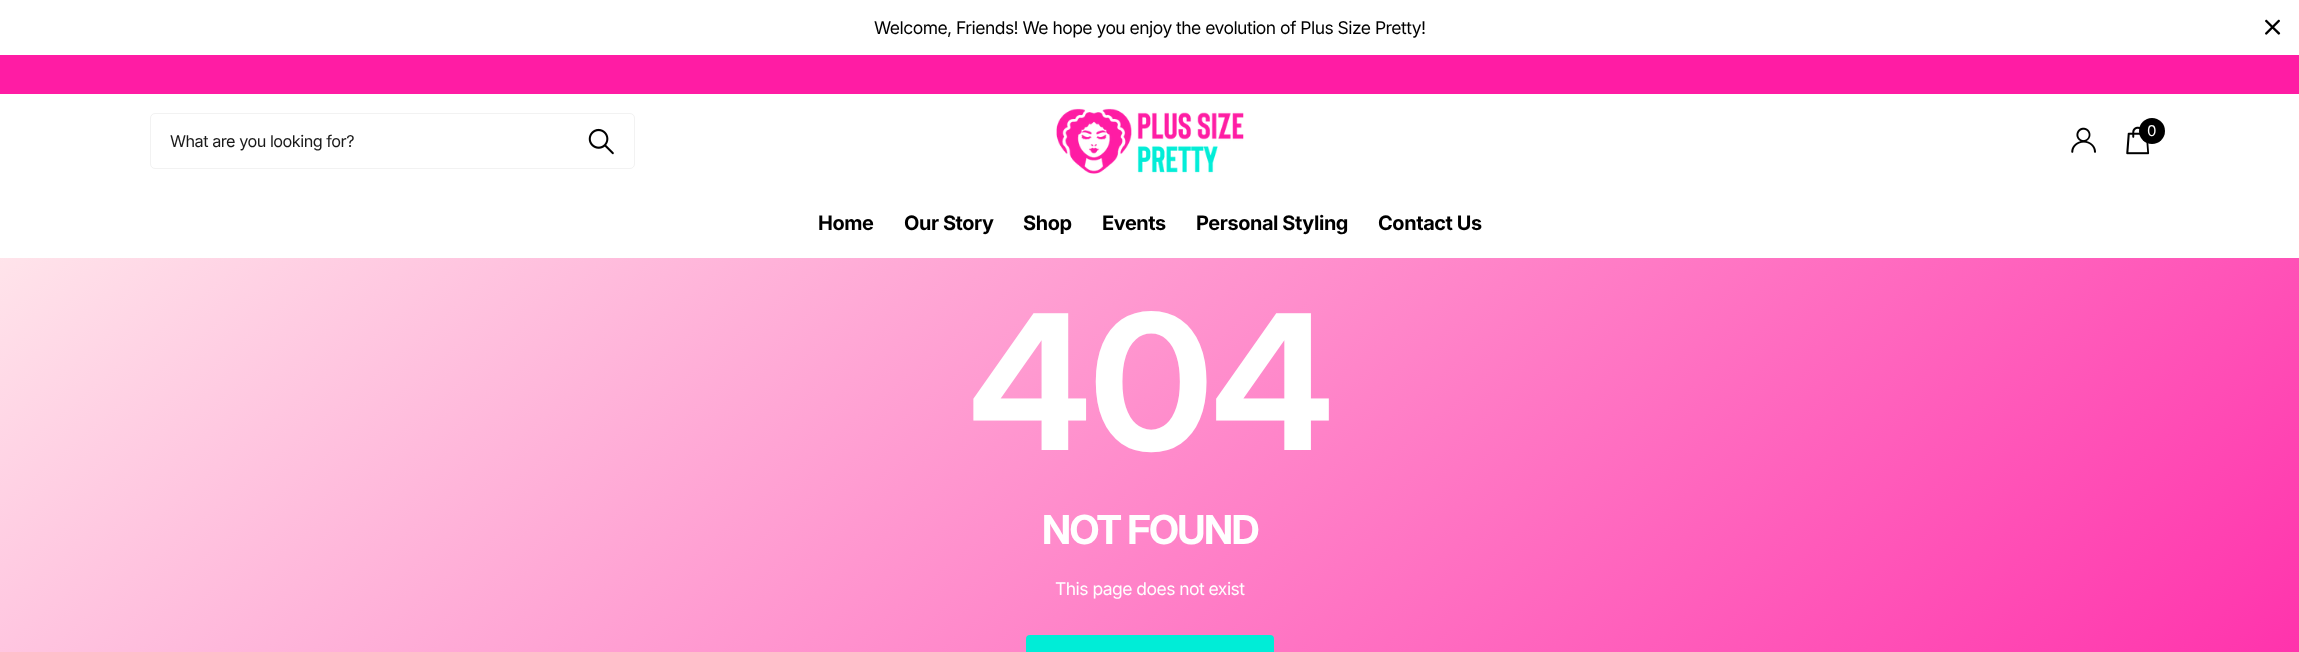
<svg xmlns="http://www.w3.org/2000/svg" width="2299" height="652" viewBox="0 0 2299 652">
  <style>
    .t1 { font: 17.5px Inter; letter-spacing: -0.53px; fill: #000; }
    .t2 { font: 15px Inter; fill: #fff; }
    .t3 { font: 16.25px Inter; letter-spacing: -0.5px; fill: #1a1a1a; }
    .t4 { font: bold 20px 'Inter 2'; letter-spacing: -0.4px; fill: #000; }
    .t5 { font: bold 188px Inter; letter-spacing: -1.5px; fill: #fff; }
    .t6 { font: bold 40px Inter; letter-spacing: -1.5px; fill: #fff; }
    .t7 { font: 17.5px Inter; letter-spacing: -0.53px; fill: #fff; }
  </style>
  <defs>
    <linearGradient id="g1" gradientUnits="userSpaceOnUse" x1="1848" y1="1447" x2="452" y2="-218"><stop offset="0.04" stop-color="#ff1ca4"/><stop offset="1" stop-color="#ffebed"/></linearGradient>
  </defs>
  <rect width="100%" height="100%" fill="#fff"/>
  <text x="874" y="34" class="t1">Welcome, Friends! We hope you enjoy the evolution of Plus Size Pretty!</text>
  <image x="2265" y="19" width="16" height="16" href="images/1.png"/>
  <rect x="0" y="55" width="2299" height="39" fill="#ff1ca4"/>
  <image x="1056" y="108" width="188" height="66" href="images/2.png"/>
  <image x="2071" y="127" width="25" height="26" href="images/3.png"/>
  <image x="2126" y="126" width="24" height="29" href="images/4.png"/>
  <circle cx="2152" cy="131" r="13" fill="#000"/>
  <text x="2147" y="136" class="t2">0</text>
  <rect x="150.5" y="113.5" width="484" height="55" rx="4.5" fill="none" stroke="#f2f2f2"/>
  <text x="170" y="147" class="t3">What are you looking for?</text>
  <image x="588" y="128" width="26" height="27" href="images/5.png"/>
  <text x="818" y="230" class="t4">Home</text>
  <text x="904" y="230" class="t4">Our Story</text>
  <text x="1023" y="230" class="t4">Shop</text>
  <text x="1102" y="230" class="t4">Events</text>
  <text x="1196" y="230" class="t4">Personal Styling</text>
  <text x="1378" y="230" class="t4">Contact Us</text>
  <rect x="0" y="258" width="2299" height="394" fill="url(#g1)"/>
  <text x="968" y="450" class="t5">404</text>
  <text x="1042" y="544" class="t6">NOT FOUND</text>
  <text x="1055" y="595" class="t7">This page does not exist</text>
  <rect x="1026" y="635" width="248" height="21" rx="4" fill="#00edd7"/>
</svg>
